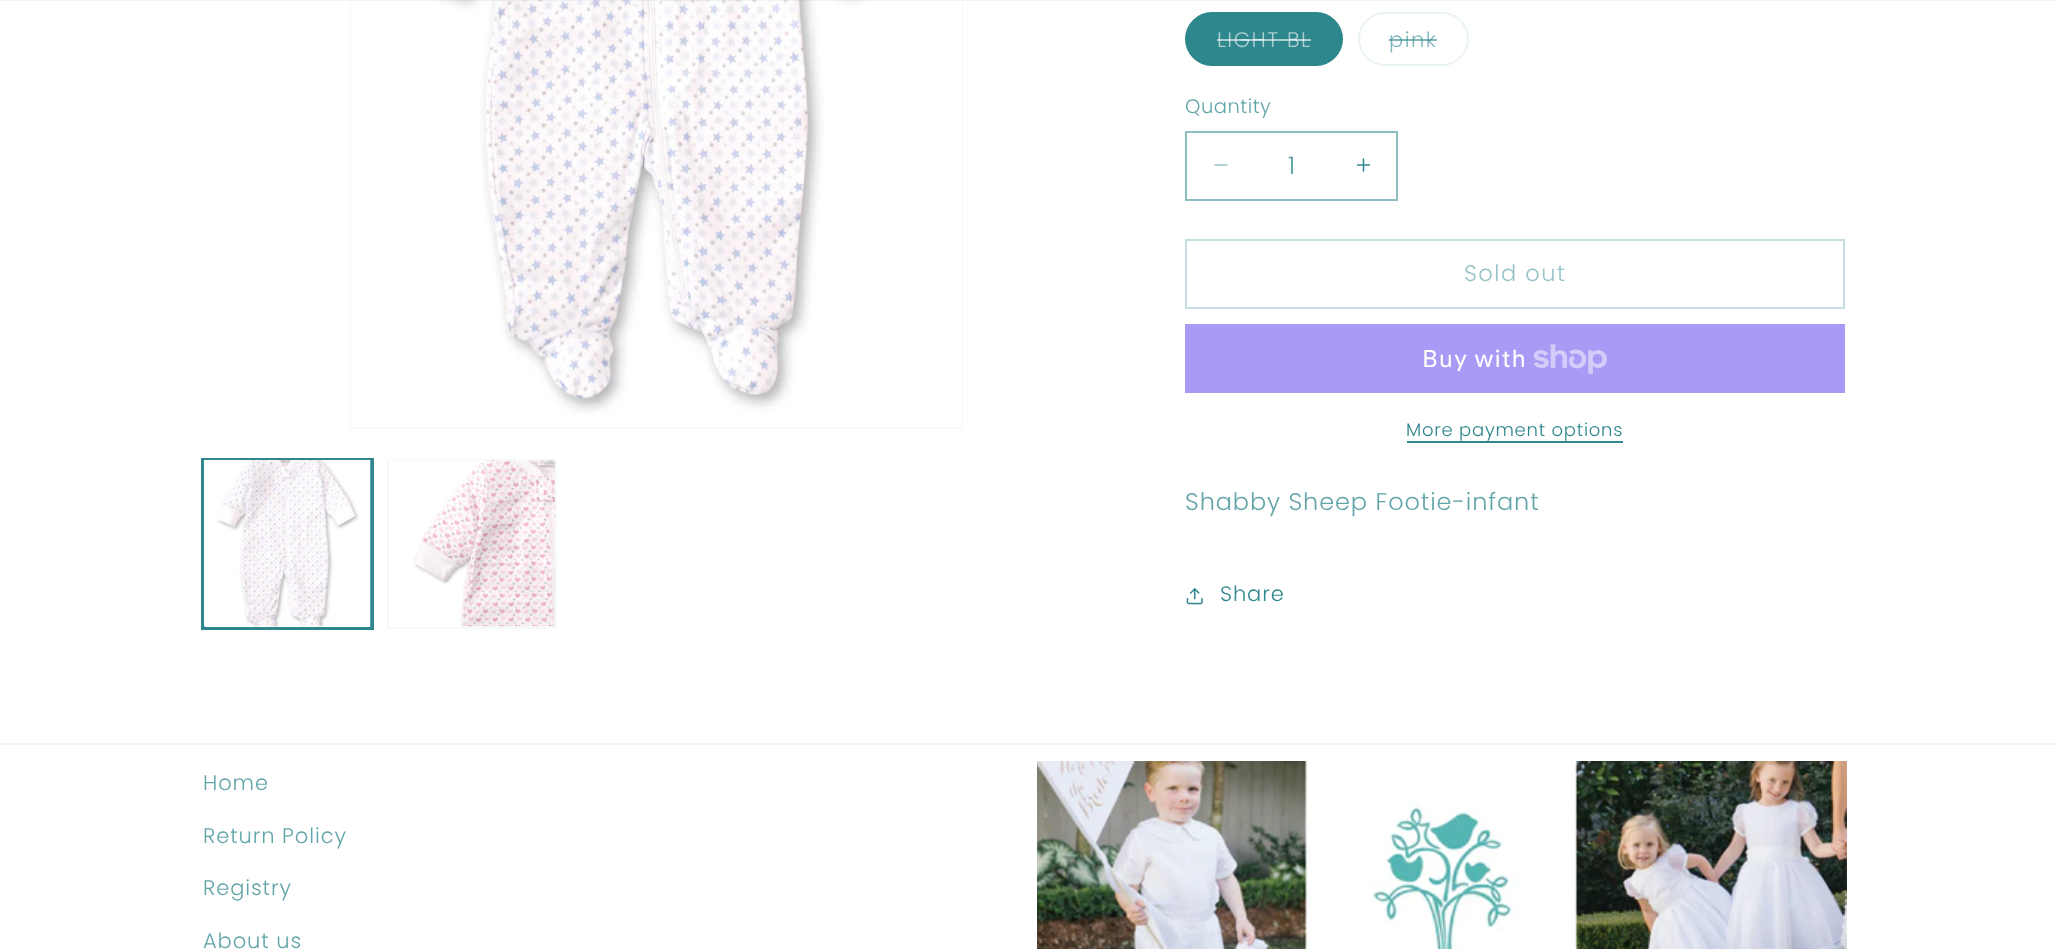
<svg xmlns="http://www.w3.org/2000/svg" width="2055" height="949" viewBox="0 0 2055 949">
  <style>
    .t1 { font: 300 21px Poppins; letter-spacing: 1.5px; fill: #abcfd1; }
    .t2 { font: 300 21px Poppins; letter-spacing: 1.5px; fill: #82b7ba; }
    .t3 { font: 300 19.5px Poppins; letter-spacing: 0.5px; fill: #62a5a9; }
    .t4 { font: 300 24px Poppins; fill: #4d999d; }
    .t5 { font: 300 22.5px Poppins; letter-spacing: 1.5px; fill: #97c3c6; }
    .t6 { font: 24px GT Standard; letter-spacing: 0.9px; fill: #fff; }
    .t7 { font: 300 18px Poppins; letter-spacing: 0.75px; fill: #2e878c; }
    .t8 { font: 300 24px Poppins; letter-spacing: 0.9px; fill: #62a5a9; }
    .t9 { font: 300 21px Poppins; letter-spacing: 0.9px; fill: #2e878c; }
    .t10 { font: 300 21px Poppins; letter-spacing: 0.9px; fill: #62a5a9; }
  </style>
  <rect width="100%" height="100%" fill="#fff"/>
  <rect x="351" y="-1" width="611" height="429" fill="none" stroke="#f5f9f9" stroke-width="2"/>
  <image x="351" y="0" width="611" height="427" href="images/1.png"/>
  <rect x="0" y="0" width="2055" height="1" fill="#2e878c14"/>
  <rect x="202" y="459" width="171" height="170" fill="none" stroke="#2e878c" stroke-width="2"/>
  <rect x="204" y="460" width="167" height="168" fill="none" stroke="#2e878c" stroke-width="2"/>
  <image x="204" y="460" width="167" height="167" href="images/2.png"/>
  <rect x="388" y="460" width="168" height="168" fill="none" stroke="#f5f9f9" stroke-width="2"/>
  <image x="389" y="460" width="166" height="167" href="images/3.png"/>
  <rect x="1185" y="12" width="158" height="54" rx="27" fill="#2e878c"/>
  <rect x="1186" y="13" width="156" height="52" rx="26" fill="none" stroke="#2e878c1a" stroke-width="2"/>
  <text x="1217" y="47" class="t1">LIGHT BL</text>
  <rect x="1217" y="39" width="94" height="2" fill="#ffffff99"/>
  <rect x="1359" y="13" width="109" height="52" rx="26" fill="none" stroke="#eaf3f4" stroke-width="2"/>
  <text x="1389" y="47" class="t2">pink</text>
  <rect x="1389" y="39" width="48" height="2" fill="#2e878c99"/>
  <text x="1185" y="113" class="t3">Quantity</text>
  <image x="1214" y="164" width="14" height="2" href="images/4.png"/>
  <image x="1356" y="158" width="15" height="14" href="images/5.png"/>
  <rect x="1186" y="132" width="211" height="68" fill="none" stroke="#8cbdc0" stroke-width="2"/>
  <text x="1288" y="174" class="t4">1</text>
  <rect x="1186" y="240" width="658" height="68" fill="none" stroke="#c6dee0" stroke-width="2"/>
  <text x="1464" y="281" class="t5">Sold out</text>
  <rect x="1185" y="324" width="660" height="69" fill="#aa99f5"/>
  <text x="1422" y="367" class="t6">Buy with</text>
  <image x="1533" y="344" width="74" height="30" href="images/6.png"/>
  <text x="1406" y="436" class="t7">More payment options</text>
  <rect x="1407" y="441" width="216" height="2" fill="#2e878c"/>
  <text x="1185" y="510" class="t8">Shabby Sheep Footie-infant</text>
  <image x="1186" y="588" width="17" height="17" href="images/7.png"/>
  <text x="1220" y="601" class="t9">Share</text>
  <rect x="0" y="743" width="2055" height="2" fill="#eef5f6"/>
  <text x="203" y="790" class="t10">Home</text>
  <text x="203" y="843" class="t10">Return Policy</text>
  <text x="203" y="895" class="t10">Registry</text>
  <text x="203" y="948" class="t10">About us</text>
  <image x="1037" y="761" width="810" height="188" href="images/8.png"/>
</svg>
